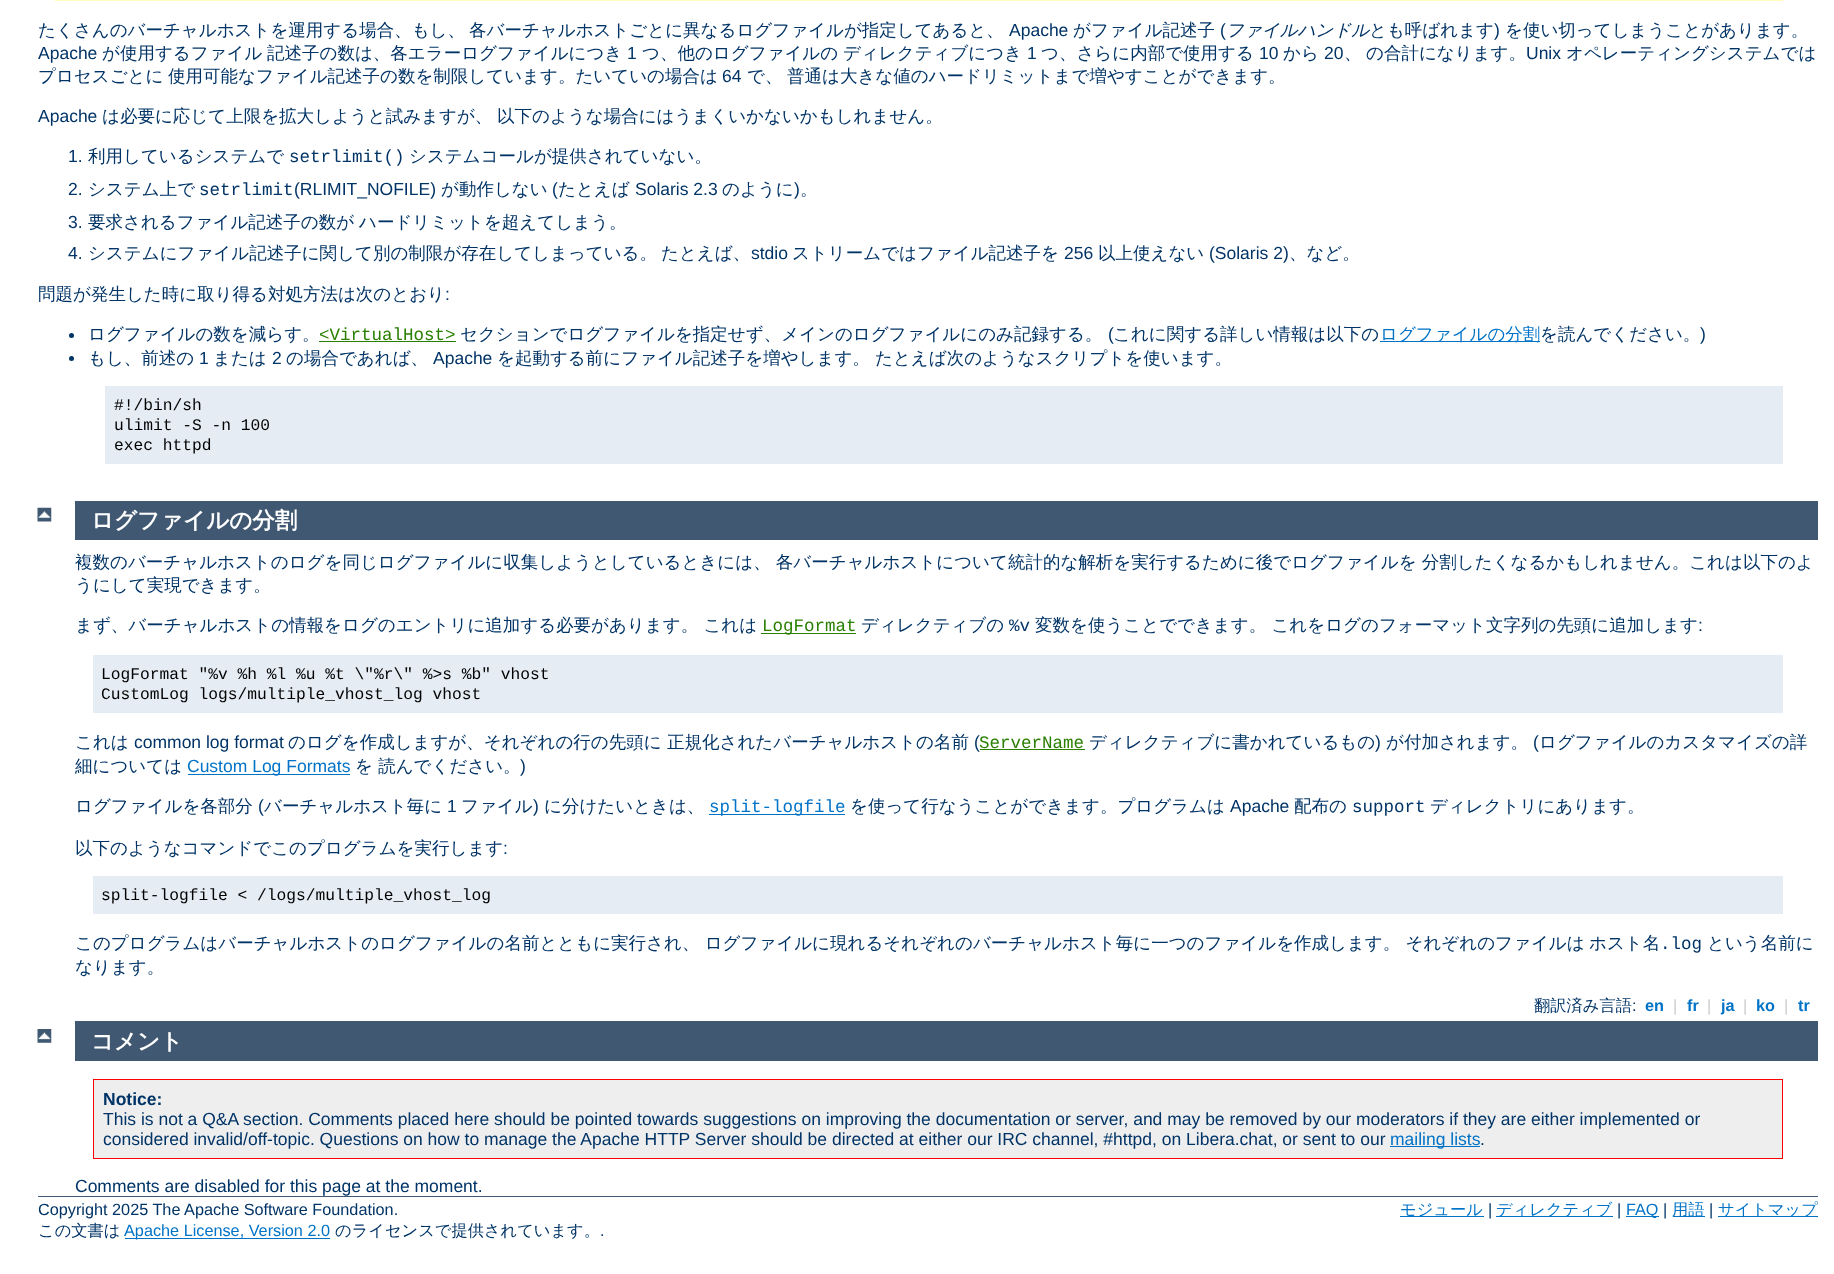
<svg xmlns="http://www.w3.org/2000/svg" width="1834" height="1274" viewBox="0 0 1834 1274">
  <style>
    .t1 { font: 500 17.5px WenQuanYi Zen Hei; fill: #036; }
    .t2 { font: 17.5px Liberation Sans; fill: #036; }
    .t3 { font: italic 500 17.5px WenQuanYi Zen Hei; fill: #036; }
    .t4 { font: 17.5px Liberation Mono; fill: #036; }
    .t5 { font: 17.5px Liberation Mono; fill: #287f00; }
    .t6 { font: 500 17.5px WenQuanYi Zen Hei; fill: #0073c7; }
    .t7 { font: 16.25px Liberation Mono; fill: #000; }
    .t8 { font: bold 22.5px WenQuanYi Zen Hei; fill: #fff; }
    .t9 { font: 17.5px Liberation Sans; fill: #0073c7; }
    .t10 { font: 17.5px Liberation Mono; fill: #0073c7; }
    .t11 { font: 500 16.25px WenQuanYi Zen Hei; fill: #036; }
    .t12 { font: 16.25px Liberation Sans; fill: #036; }
    .t13 { font: bold 16.25px Liberation Sans; fill: #0073c7; }
    .t14 { font: 16.25px Liberation Sans; fill: #ccc; }
    .t15 { font: bold 17.5px Liberation Sans; fill: #036; }
    .t16 { font: 16.25px Liberation Sans; fill: #0073c7; }
    .t17 { font: 500 16.25px WenQuanYi Zen Hei; fill: #0073c7; }
  </style>
  <rect width="100%" height="100%" fill="#fff"/>
  <rect x="55" y="0" width="1728" height="1" fill="#ffffc0"/>
  <text x="38" y="36" class="t1">たくさんのバーチャルホストを運用する場合、もし、</text>
  <text x="469" y="36" class="t1">各バーチャルホストごとに異なるログファイルが指定してあると、</text>
  <text x="1009" y="36" class="t2">Apache</text>
  <text x="1073" y="36" class="t1">がファイル記述子</text>
  <text x="1220" y="36" class="t2">(</text>
  <text x="1226" y="36" class="t3">ファイルハンドル</text>
  <text x="1369" y="36" class="t1">とも呼ばれます</text>
  <text x="1494" y="36" class="t2">)</text>
  <text x="1505" y="36" class="t1">を使い切ってしまうことがあります。</text>
  <text x="38" y="59" class="t2">Apache</text>
  <text x="102" y="59" class="t1">が使用するファイル</text>
  <text x="267" y="59" class="t1">記述子の数は、各エラーログファイルにつき</text>
  <text x="627" y="59" class="t2">1</text>
  <text x="642" y="59" class="t1">つ、他のログファイルの</text>
  <text x="843" y="59" class="t1">ディレクティブにつき</text>
  <text x="1027" y="59" class="t2">1</text>
  <text x="1041" y="59" class="t1">つ、さらに内部で使用する</text>
  <text x="1259" y="59" class="t2">10</text>
  <text x="1283" y="59" class="t1">から</text>
  <text x="1324" y="59" class="t2">20</text>
  <text x="1344" y="59" class="t1">、</text>
  <text x="1366" y="59" class="t1">の合計になります。</text>
  <text x="1526" y="59" class="t2">Unix</text>
  <text x="1566" y="59" class="t1">オペレーティングシステムでは</text>
  <text x="38" y="82" class="t1">プロセスごとに</text>
  <text x="168" y="82" class="t1">使用可能なファイル記述子の数を制限しています。たいていの場合は</text>
  <text x="722" y="82" class="t2">64</text>
  <text x="747" y="82" class="t1">で、</text>
  <text x="787" y="82" class="t1">普通は大きな値のハードリミットまで増やすことができます。</text>
  <text x="38" y="122" class="t2">Apache</text>
  <text x="102" y="122" class="t1">は必要に応じて上限を拡大しようと試みますが、</text>
  <text x="497" y="122" class="t1">以下のような場合にはうまくいかないかもしれません。</text>
  <text x="68" y="162" class="t2">1.</text>
  <text x="88" y="162" class="t1">利用しているシステムで</text>
  <text x="289" y="162" class="t4">setrlimit()</text>
  <text x="409" y="162" class="t1">システムコールが提供されていない。</text>
  <text x="68" y="195" class="t2">2.</text>
  <text x="88" y="195" class="t1">システム上で</text>
  <text x="199" y="195" class="t4">setrlimit</text>
  <text x="294" y="195" class="t2">(RLIMIT_NOFILE)</text>
  <text x="441" y="195" class="t1">が動作しない</text>
  <text x="552" y="195" class="t2">(</text>
  <text x="558" y="195" class="t1">たとえば</text>
  <text x="635" y="195" class="t2">Solaris 2.3</text>
  <text x="722" y="195" class="t1">のように</text>
  <text x="794" y="195" class="t2">)</text>
  <text x="800" y="195" class="t1">。</text>
  <text x="68" y="228" class="t2">3.</text>
  <text x="88" y="228" class="t1">要求されるファイル記述子の数が</text>
  <text x="359" y="228" class="t1">ハードリミットを超えてしまう。</text>
  <text x="68" y="259" class="t2">4.</text>
  <text x="88" y="259" class="t1">システムにファイル記述子に関して別の制限が存在してしまっている。</text>
  <text x="661" y="259" class="t1">たとえば、</text>
  <text x="751" y="259" class="t2">stdio</text>
  <text x="792" y="259" class="t1">ストリームではファイル記述子を</text>
  <text x="1064" y="259" class="t2">256</text>
  <text x="1098" y="259" class="t1">以上使えない</text>
  <text x="1209" y="259" class="t2">(Solaris 2)</text>
  <text x="1289" y="259" class="t1">、など。</text>
  <text x="38" y="300" class="t1">問題が発生した時に取り得る対処方法は次のとおり</text>
  <text x="445" y="300" class="t2">:</text>
  <circle cx="71.5" cy="335.5" r="2.5" fill="#036"/>
  <text x="88" y="340" class="t1">ログファイルの数を減らす。</text>
  <text x="319" y="340" class="t5">&lt;VirtualHost&gt;</text>
  <rect x="319" y="341" width="137" height="1" fill="#287f00"/>
  <text x="460" y="340" class="t1">セクションでログファイルを指定せず、メインのログファイルにのみ記録する。</text>
  <text x="1108" y="340" class="t2">(</text>
  <text x="1113" y="340" class="t1">これに関する詳しい情報は以下の</text>
  <rect x="1380" y="341" width="160" height="1" fill="#0073c7"/>
  <text x="1380" y="340" class="t6">ログファイルの分割</text>
  <text x="1540" y="340" class="t1">を読んでください。</text>
  <text x="1700" y="340" class="t2">)</text>
  <circle cx="71.5" cy="358.5" r="2.5" fill="#036"/>
  <text x="88" y="364" class="t1">もし、前述の</text>
  <text x="199" y="364" class="t2">1</text>
  <text x="213" y="364" class="t1">または</text>
  <text x="272" y="364" class="t2">2</text>
  <text x="286" y="364" class="t1">の場合であれば、</text>
  <text x="433" y="364" class="t2">Apache</text>
  <text x="497" y="364" class="t1">を起動する前にファイル記述子を増やします。</text>
  <text x="875" y="364" class="t1">たとえば次のようなスクリプトを使います。</text>
  <rect x="105" y="386" width="1678" height="78" fill="#e5ecf3"/>
  <text x="114" y="410" class="t7">#!/bin/sh</text>
  <text x="114" y="430" class="t7">ulimit -S -n 100</text>
  <text x="114" y="450" class="t7">exec httpd</text>
  <image x="37" y="507" width="15" height="15" href="images/1.png"/>
  <rect x="75" y="501" width="1743" height="39" fill="#405871"/>
  <text x="91" y="528" class="t8">ログファイルの分割</text>
  <text x="75" y="568" class="t1">複数のバーチャルホストのログを同じログファイルに収集しようとしているときには、 各バーチャルホストについて統計的な解析を実行するために後でログファイルを 分割したくなるかもしれません。これは以下のよ</text>
  <text x="75" y="591" class="t1">うにして実現できます。</text>
  <text x="75" y="631" class="t1">まず、バーチャルホストの情報をログのエントリに追加する必要があります。 これは</text>
  <rect x="761" y="633" width="95" height="1" fill="#287f00"/>
  <text x="762" y="631" class="t5">LogFormat</text>
  <text x="861" y="631" class="t1">ディレクティブの</text>
  <text x="1009" y="631" class="t4">%v</text>
  <text x="1035" y="631" class="t1">変数を使うことでできます。 これをログのフォーマット文字列の先頭に追加します</text>
  <text x="1698" y="631" class="t2">:</text>
  <rect x="93" y="655" width="1690" height="58" fill="#e5ecf3"/>
  <text x="101" y="679" class="t7">LogFormat "%v %h %l %u %t \"%r\" %&gt;s %b" vhost</text>
  <text x="101" y="699" class="t7">CustomLog logs/multiple_vhost_log vhost</text>
  <text x="75" y="748" class="t1">これは</text>
  <text x="134" y="748" class="t2">common log format</text>
  <text x="288" y="748" class="t1">のログを作成しますが、それぞれの行の先頭に</text>
  <text x="667" y="748" class="t1">正規化されたバーチャルホストの名前</text>
  <text x="974" y="748" class="t2">(</text>
  <text x="979" y="748" class="t5">ServerName</text>
  <rect x="980" y="749" width="105" height="1" fill="#287f00"/>
  <text x="1089" y="748" class="t1">ディレクティブに書かれているもの</text>
  <text x="1375" y="748" class="t2">)</text>
  <text x="1386" y="748" class="t1">が付加されます。</text>
  <text x="1533" y="748" class="t2">(</text>
  <text x="1539" y="748" class="t1">ログファイルのカスタマイズの詳</text>
  <text x="75" y="772" class="t1">細については</text>
  <rect x="188" y="774" width="162" height="1" fill="#0073c7"/>
  <text x="187" y="772" class="t9">Custom Log Formats</text>
  <text x="355" y="772" class="t1">を 読んでください。</text>
  <text x="520" y="772" class="t2">)</text>
  <text x="75" y="812" class="t1">ログファイルを各部分</text>
  <text x="258" y="812" class="t2">(</text>
  <text x="264" y="812" class="t1">バーチャルホスト毎に</text>
  <text x="447" y="812" class="t2">1</text>
  <text x="461" y="812" class="t1">ファイル</text>
  <text x="533" y="812" class="t2">)</text>
  <text x="544" y="812" class="t1">に分けたいときは、</text>
  <rect x="709" y="814" width="136" height="1" fill="#0073c7"/>
  <text x="709" y="812" class="t10">split-logfile</text>
  <text x="850" y="812" class="t1">を使って行なうことができます。プログラムは</text>
  <text x="1230" y="812" class="t2">Apache</text>
  <text x="1294" y="812" class="t1">配布の</text>
  <text x="1352" y="812" class="t4">support</text>
  <text x="1430" y="812" class="t1">ディレクトリにあります。</text>
  <text x="75" y="854" class="t1">以下のようなコマンドでこのプログラムを実行します</text>
  <text x="503" y="854" class="t2">:</text>
  <rect x="93" y="876" width="1690" height="38" fill="#e5ecf3"/>
  <text x="101" y="900" class="t7">split-logfile &lt; /logs/multiple_vhost_log</text>
  <text x="75" y="949" class="t1">このプログラムはバーチャルホストのログファイルの名前とともに実行され、 ログファイルに現れるそれぞれのバーチャルホスト毎に一つのファイルを作成します。 それぞれのファイルは</text>
  <text x="1589" y="949" class="t1">ホスト名</text>
  <text x="1660" y="949" class="t4">.log</text>
  <text x="1707" y="949" class="t1">という名前に</text>
  <text x="75" y="973" class="t1">なります。</text>
  <text x="1534" y="1011" class="t11">翻訳済み言語</text>
  <text x="1632" y="1011" class="t12">:</text>
  <text x="1645" y="1011" class="t13">en</text>
  <text x="1673" y="1011" class="t14">|</text>
  <text x="1687" y="1011" class="t13">fr</text>
  <text x="1707" y="1011" class="t14">|</text>
  <text x="1721" y="1011" class="t13">ja</text>
  <text x="1743" y="1011" class="t14">|</text>
  <text x="1756" y="1011" class="t13">ko</text>
  <text x="1784" y="1011" class="t14">|</text>
  <text x="1798" y="1011" class="t13">tr</text>
  <image x="37" y="1029" width="15" height="14" href="images/2.png"/>
  <rect x="75" y="1021" width="1743" height="40" fill="#405871"/>
  <text x="91" y="1049" class="t8">コメント</text>
  <rect x="93.5" y="1079.5" width="1689" height="79" fill="#eee" stroke="#f00"/>
  <text x="103" y="1105" class="t15">Notice:</text>
  <text x="103" y="1125" class="t2">This is not a Q&amp;A section. Comments placed here should be pointed towards suggestions on improving the documentation or server, and may be removed by our moderators if they are either implemented or</text>
  <text x="103" y="1145" class="t2">considered invalid/off-topic. Questions on how to manage the Apache HTTP Server should be directed at either our IRC channel, #httpd, on Libera.chat, or sent to our</text>
  <rect x="1390" y="1146" width="90" height="1" fill="#0073c7"/>
  <text x="1390" y="1145" class="t9">mailing lists</text>
  <text x="1480" y="1145" class="t2">.</text>
  <text x="75" y="1192" class="t2">Comments are disabled for this page at the moment.</text>
  <rect x="38" y="1196" width="1780" height="1" fill="#405871"/>
  <text x="38" y="1215" class="t12">Copyright 2025 The Apache Software Foundation.</text>
  <text x="38" y="1236" class="t11">この文書は</text>
  <rect x="125" y="1238" width="205" height="1" fill="#0073c7"/>
  <text x="124" y="1236" class="t16">Apache License, Version 2.0</text>
  <text x="335" y="1236" class="t11">のライセンスで提供されています。</text>
  <text x="600" y="1236" class="t12">.</text>
  <rect x="1400" y="1216" width="84" height="1" fill="#0073c7"/>
  <text x="1400" y="1215" class="t17">モジュール</text>
  <text x="1488" y="1215" class="t12">|</text>
  <rect x="1496" y="1216" width="117" height="1" fill="#0073c7"/>
  <text x="1496" y="1215" class="t17">ディレクティブ</text>
  <text x="1617" y="1215" class="t12">|</text>
  <rect x="1626" y="1216" width="33" height="1" fill="#0073c7"/>
  <text x="1626" y="1215" class="t16">FAQ</text>
  <text x="1663" y="1215" class="t12">|</text>
  <rect x="1673" y="1216" width="32" height="1" fill="#0073c7"/>
  <text x="1672" y="1215" class="t17">用語</text>
  <text x="1709" y="1215" class="t12">|</text>
  <rect x="1718" y="1216" width="100" height="1" fill="#0073c7"/>
  <text x="1718" y="1215" class="t17">サイトマップ</text>
</svg>
